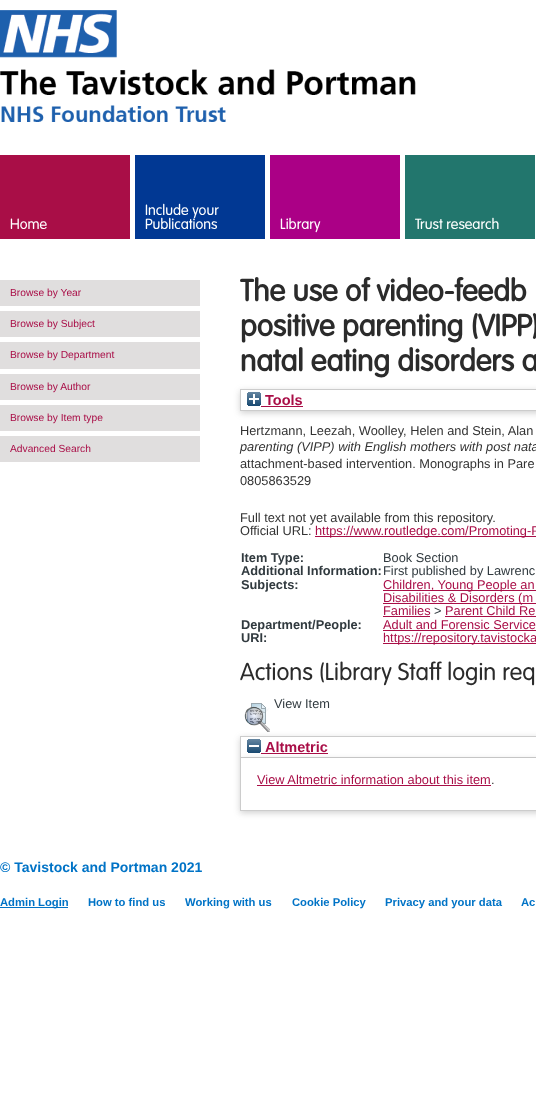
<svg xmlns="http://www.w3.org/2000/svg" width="536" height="1095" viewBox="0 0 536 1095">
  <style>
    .t1 { font: 300 14.5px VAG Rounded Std; fill: #fff; }
    .t2 { font: 10.25px Liberation Sans; fill: #a90e47; }
    .t3 { font: bold 30px VAG Rounded Std; fill: #2b2b2b; }
    .t4 { font: bold 14.5px Liberation Sans; fill: #a90e47; }
    .t5 { font: 12.8px Liberation Sans; fill: #333; }
    .t6 { font: italic 12.8px Liberation Sans; fill: #333; }
    .t7 { font: 12.8px Liberation Sans; fill: #a90e47; }
    .t8 { font: bold 12.8px Liberation Sans; fill: #313a3f; }
    .t9 { font: 12.8px Liberation Sans; fill: #313a3f; }
    .t10 { font: 300 24px VAG Rounded Std; fill: #2b2b2b; }
    .t11 { font: bold 14px Liberation Sans; fill: #0073c6; }
    .t12 { font: bold 11.25px Liberation Sans; fill: #0073c6; }
  </style>
  <defs>
    <clipPath id="clip1"><path d="M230 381H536V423H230ZM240 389H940V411H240Z" clip-rule="evenodd"/></clipPath>
    <clipPath id="clip2"><path d="M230 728H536V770H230ZM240 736H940V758H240Z" clip-rule="evenodd"/></clipPath>
  </defs>
  <rect width="100%" height="100%" fill="#fff"/>
  <image x="0" y="10" width="416" height="112" href="images/1.png"/>
  <rect x="0" y="155" width="130" height="84" fill="#a90e47"/>
  <text x="10" y="229" class="t1">Home</text>
  <rect x="135" y="155" width="130" height="84" fill="#013893"/>
  <text x="145" y="215" class="t1">Include your</text>
  <text x="145" y="229" class="t1">Publications</text>
  <rect x="270" y="155" width="130" height="84" fill="#ab0086"/>
  <text x="280" y="229" class="t1">Library</text>
  <rect x="405" y="155" width="130" height="84" fill="#22766d"/>
  <text x="415" y="229" class="t1">Trust research</text>
  <rect x="0" y="280" width="200" height="26" fill="#e0dede"/>
  <text x="10" y="296" class="t2">Browse by Year</text>
  <rect x="0" y="311" width="200" height="26" fill="#e0dede"/>
  <text x="10" y="327" class="t2">Browse by Subject</text>
  <rect x="0" y="342" width="200" height="27" fill="#e0dede"/>
  <text x="10" y="358" class="t2">Browse by Department</text>
  <rect x="0" y="374" width="200" height="26" fill="#e0dede"/>
  <text x="10" y="390" class="t2">Browse by Author</text>
  <rect x="0" y="405" width="200" height="26" fill="#e0dede"/>
  <text x="10" y="421" class="t2">Browse by Item type</text>
  <rect x="0" y="436" width="200" height="26" fill="#e0dede"/>
  <text x="10" y="452" class="t2">Advanced Search</text>
  <text x="240" y="301" class="t3">The use of video-feedb</text>
  <text x="240" y="336" class="t3">positive parenting (VIPP)</text>
  <text x="240" y="371" class="t3">natal eating disorders a</text>
  <g clip-path="url(#clip1)">
    <rect x="240" y="391" width="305" height="22" fill="#6464644d" filter="blur(3px)"/>
  </g>
  <rect x="240.5" y="389.5" width="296" height="21" fill="none" stroke="#ccc"/>
  <image x="247" y="392" width="14" height="14" href="images/2.png"/>
  <text x="265" y="405" class="t4">Tools</text>
  <rect x="261" y="406" width="42" height="1" fill="#a90e47"/>
  <text x="240" y="435" class="t5">Hertzmann, Leezah, Woolley, Helen and Stein, Alan</text>
  <text x="240" y="451" class="t6">parenting (VIPP) with English mothers with post nata</text>
  <text x="240" y="468" class="t5">attachment-based intervention. Monographs in Pare</text>
  <text x="240" y="485" class="t5">0805863529</text>
  <text x="240" y="522" class="t5">Full text not yet available from this repository.</text>
  <text x="240" y="535" class="t5">Official URL:</text>
  <rect x="315" y="536" width="221" height="1" fill="#a90e47"/>
  <text x="315" y="535" class="t7">https://www.routledge.com/Promoting-P</text>
  <text x="241" y="562" class="t8">Item Type:</text>
  <text x="383" y="562" class="t9">Book Section</text>
  <text x="241" y="575" class="t8">Additional Information:</text>
  <text x="383" y="575" class="t9">First published by Lawrenc</text>
  <text x="241" y="589" class="t8">Subjects:</text>
  <rect x="383" y="590" width="153" height="1" fill="#a90e47"/>
  <text x="383" y="589" class="t7">Children, Young People an</text>
  <rect x="383" y="603" width="153" height="1" fill="#a90e47"/>
  <text x="383" y="602" class="t7">Disabilities &amp; Disorders (m</text>
  <text x="383" y="615" class="t7">Families</text>
  <rect x="383" y="616" width="47" height="1" fill="#a90e47"/>
  <text x="434" y="615" class="t9">&gt;</text>
  <text x="445" y="615" class="t7">Parent Child Re</text>
  <rect x="445" y="616" width="91" height="1" fill="#a90e47"/>
  <text x="241" y="629" class="t8">Department/People:</text>
  <text x="383" y="629" class="t7">Adult and Forensic Service</text>
  <rect x="383" y="630" width="153" height="1" fill="#a90e47"/>
  <text x="241" y="642" class="t8">URI:</text>
  <rect x="383" y="643" width="153" height="1" fill="#a90e47"/>
  <text x="383" y="642" class="t7">https://repository.tavistocka</text>
  <text x="240" y="680" class="t10">Actions (Library Staff login req</text>
  <g clip-path="url(#clip2)">
    <rect x="240" y="738" width="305" height="22" fill="#6464644d" filter="blur(3px)"/>
  </g>
  <image x="244" y="703" width="26" height="29" href="images/3.png"/>
  <text x="274" y="708" class="t9">View Item</text>
  <rect x="240.5" y="736.5" width="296" height="21" fill="none" stroke="#ccc"/>
  <rect x="240" y="760" width="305" height="53" fill="#6464644d" filter="blur(3px)"/>
  <image x="247" y="739" width="14" height="14" href="images/4.png"/>
  <text x="265" y="752" class="t4">Altmetric</text>
  <rect x="261" y="753" width="67" height="1" fill="#a90e47"/>
  <rect x="241" y="758" width="295" height="52" fill="#fff"/>
  <rect x="240" y="810" width="296" height="1" fill="#ccc"/>
  <rect x="240" y="758" width="1" height="53" fill="#ccc"/>
  <text x="257" y="784" class="t7">View Altmetric information about this item</text>
  <rect x="257" y="785" width="234" height="1" fill="#a90e47"/>
  <text x="491" y="784" class="t5">.</text>
  <text x="0" y="872" class="t11">© Tavistock and Portman 2021</text>
  <rect x="0" y="907" width="68" height="1" fill="#0073c6"/>
  <text x="0" y="906" class="t12">Admin Login</text>
  <text x="88" y="906" class="t12">How to find us</text>
  <text x="185" y="906" class="t12">Working with us</text>
  <text x="292" y="906" class="t12">Cookie Policy</text>
  <text x="385" y="906" class="t12">Privacy and your data</text>
  <text x="521" y="906" class="t12">Ac</text>
</svg>
